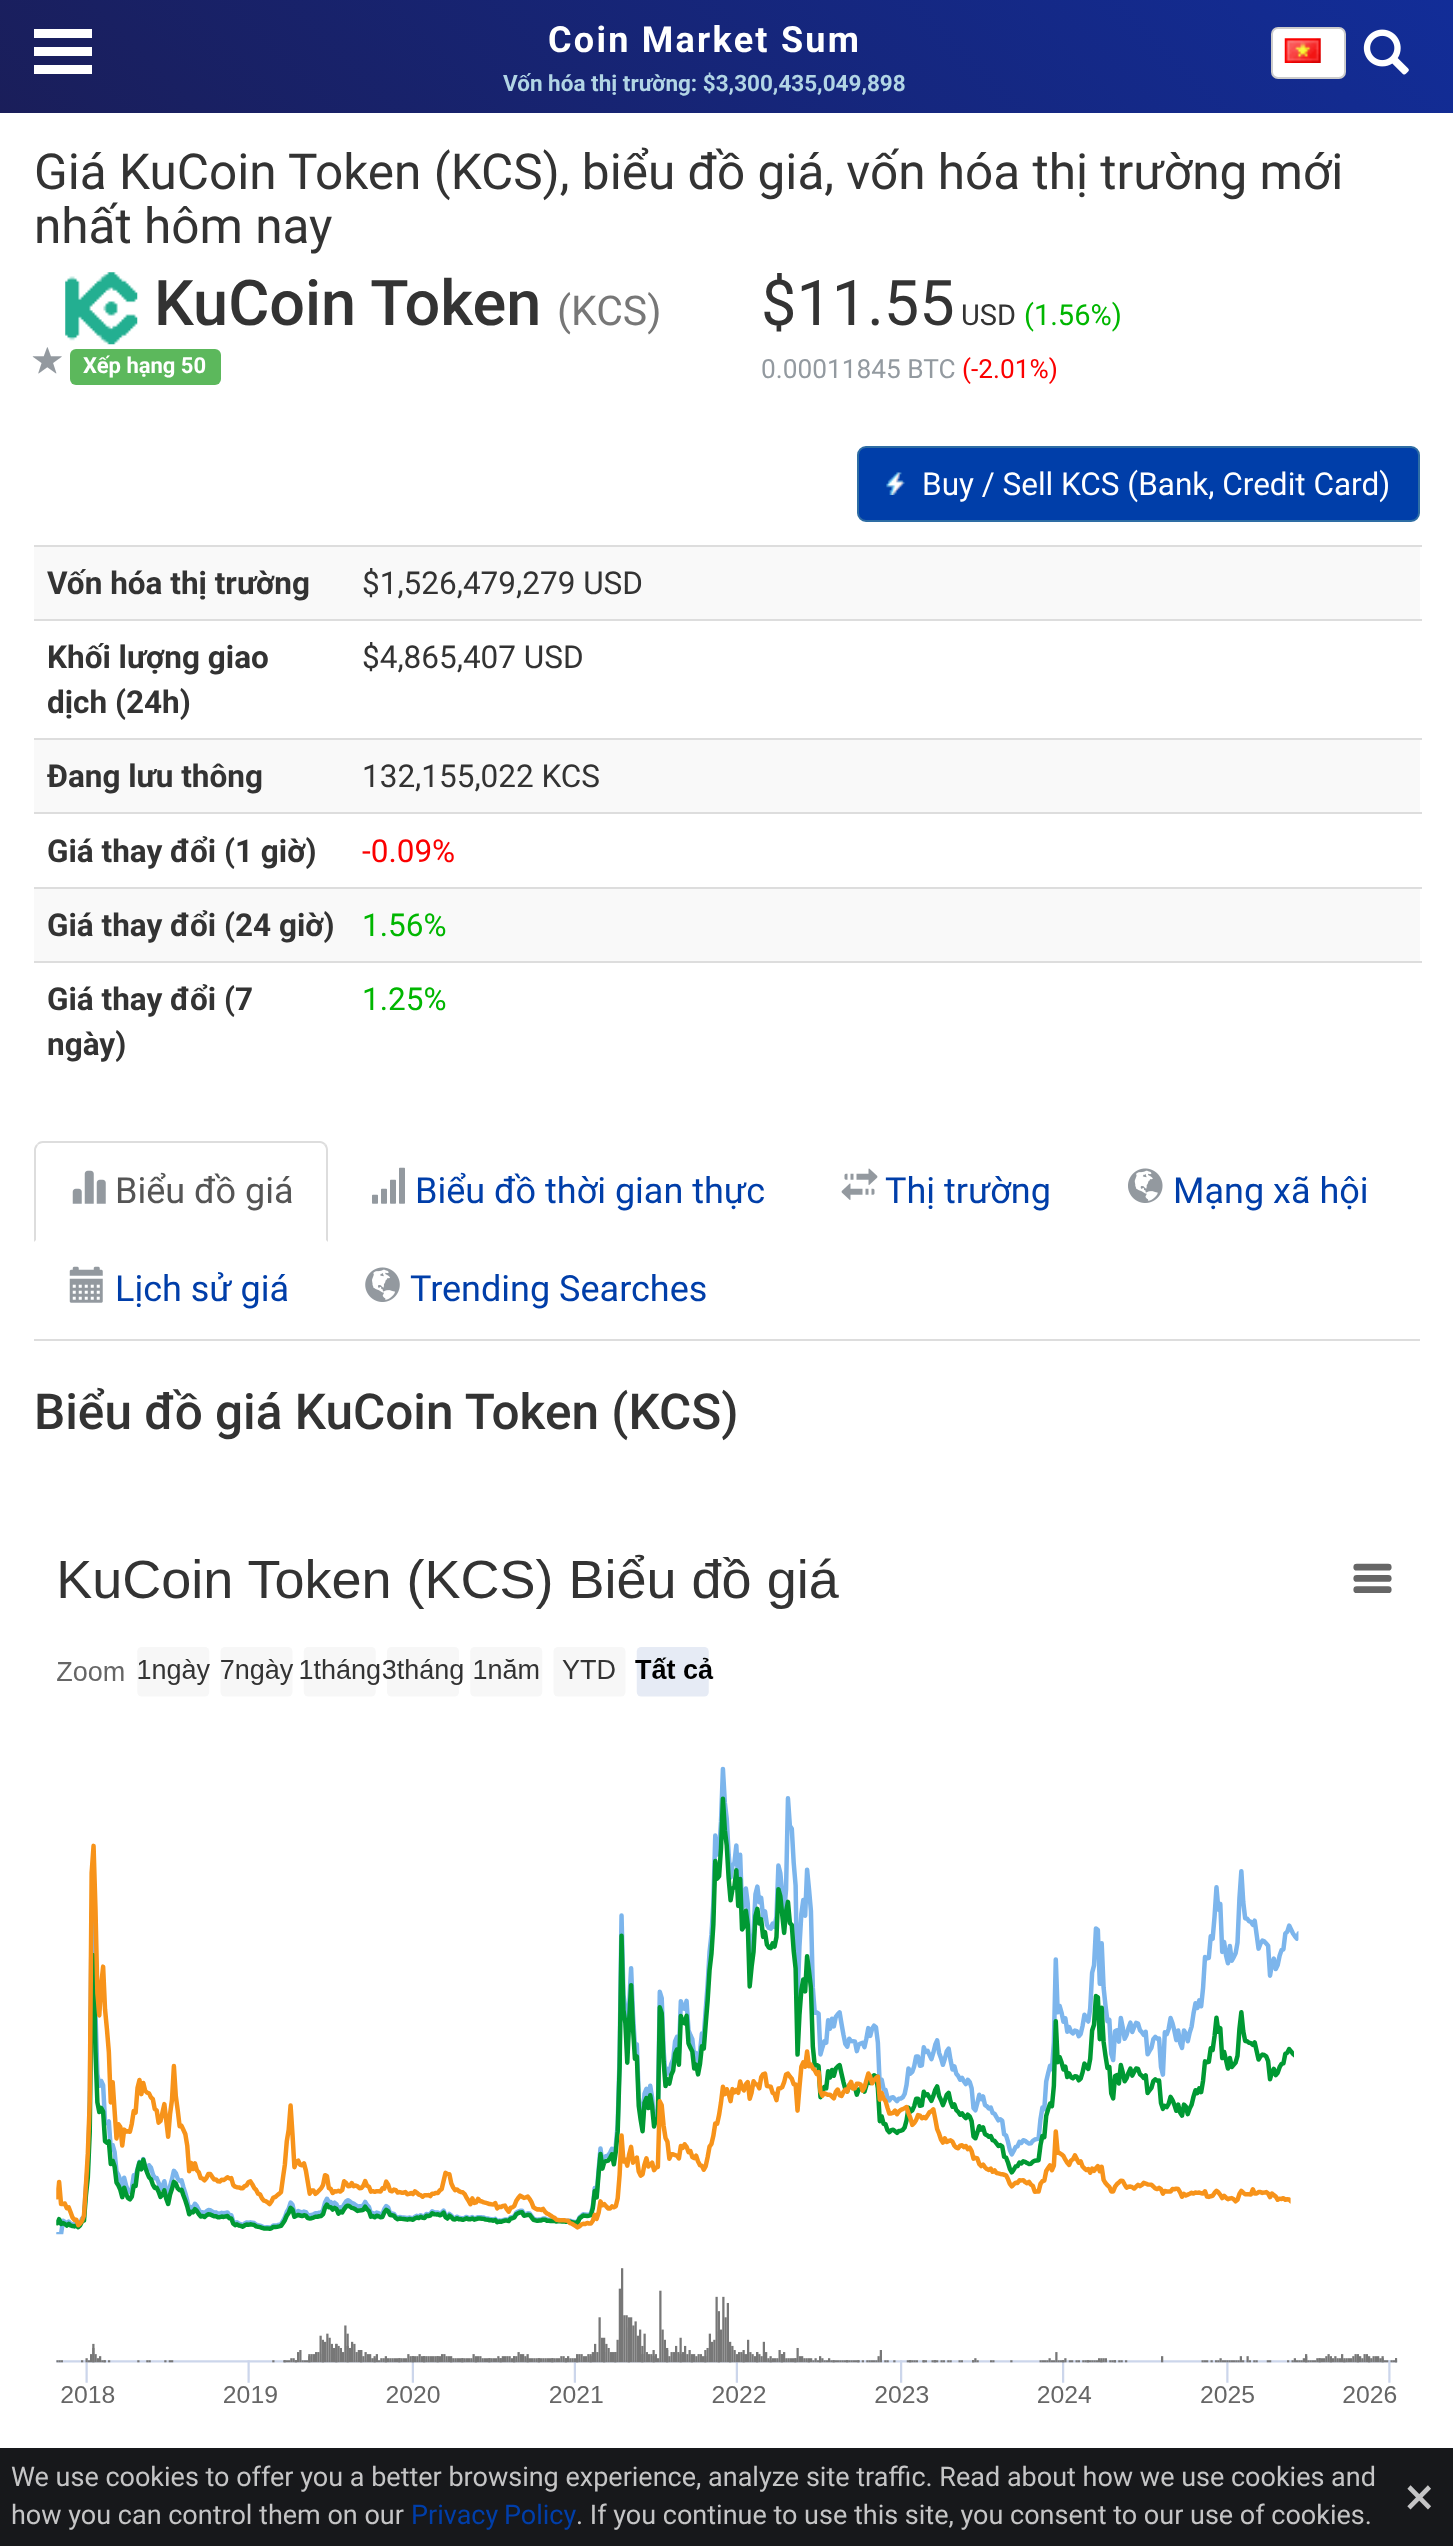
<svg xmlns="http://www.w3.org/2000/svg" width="1453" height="2546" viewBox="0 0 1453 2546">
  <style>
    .t1 { font: bold 36px Roboto; letter-spacing: 2.25px; fill: #fff; }
    .t2 { font: bold 22.5px Roboto; fill: #b2d5e5; }
    .t3 { font: 49.5px Roboto; fill: #333; }
    .t4 { font: 500 63px Roboto; fill: #333; }
    .t5 { font: 41px Roboto; fill: #777; }
    .t6 { font: bold 22px Roboto; fill: #fff; }
    .t7 { font: 63px Roboto; fill: #333; }
    .t8 { font: 29px Roboto; fill: #333; }
    .t9 { font: 29px Roboto; fill: #00b600; }
    .t10 { font: 26.25px Roboto; fill: #939aa0; }
    .t11 { font: 26.25px Roboto; fill: #fb0000; }
    .t12 { font: 31.5px Roboto; fill: #fff; }
    .t13 { font: bold 31.5px Roboto; fill: #333; }
    .t14 { font: 31.5px Roboto; fill: #333; }
    .t15 { font: 31.5px Roboto; fill: #fb0000; }
    .t16 { font: 31.5px Roboto; fill: #00b600; }
    .t17 { font: 36px Roboto; fill: #555; }
    .t18 { font: 36px Roboto; fill: #003ea9; }
    .t19 { font: 500 49.5px Roboto; fill: #333; }
    .t20 { font: 27px Roboto; fill: #c5c5c6; }
    .t21 { font: 27px Roboto; fill: #003ea9; }
    .t22 { font: 54px Roboto; fill: #c5c5c6; }
  </style>
  <defs>
    <linearGradient id="g1" gradientUnits="userSpaceOnUse" x1="335" y1="448" x2="1118" y2="-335"><stop offset="0" stop-color="#1a1e5a"/><stop offset="1" stop-color="#122d98"/></linearGradient>
  </defs>
  <rect width="100%" height="100%" fill="#fff"/>
  <rect x="0" y="0" width="1453" height="113" fill="url(#g1)"/>
  <rect x="34" y="29" width="58" height="9" fill="#fff"/>
  <rect x="34" y="47" width="58" height="9" fill="#fff"/>
  <rect x="34" y="65" width="58" height="9" fill="#fff"/>
  <text x="548" y="52" class="t1">Coin Market Sum</text>
  <text x="503" y="91" class="t2">Vốn hóa thị trường: $3,300,435,049,898</text>
  <rect x="1272" y="28" width="73" height="50" rx="6" fill="#fff" stroke="#ccc" stroke-width="2"/>
  <image x="1284" y="38" width="37" height="25" href="images/1.png"/>
  <image x="1363" y="29" width="46" height="46" href="images/2.png"/>
  <text x="34" y="189" class="t3">Giá KuCoin Token (KCS), biểu đồ giá, vốn hóa thị trường mới</text>
  <text x="34" y="243" class="t3">nhất hôm nay</text>
  <image x="65" y="272" width="73" height="73" href="images/3.png"/>
  <text x="154" y="325" class="t4">KuCoin Token</text>
  <text x="557" y="325" class="t5">(KCS)</text>
  <image x="32" y="347" width="30" height="27" href="images/4.png"/>
  <rect x="70" y="349" width="151" height="36" rx="6" fill="#5cb85c"/>
  <text x="83" y="373" class="t6">Xếp hạng 50</text>
  <text x="761" y="325" class="t7">$11.55</text>
  <text x="961" y="325" class="t8">USD</text>
  <text x="1024" y="325" class="t9">(1.56%)</text>
  <text x="761" y="378" class="t10">0.00011845 BTC</text>
  <text x="962" y="378" class="t11">(-2.01%)</text>
  <rect x="858" y="447" width="561" height="74" rx="8" fill="#003ea9" stroke="#2e6da4" stroke-width="2"/>
  <image x="886" y="472" width="19" height="23" href="images/5.png"/>
  <text x="922" y="495" class="t12">Buy / Sell KCS (Bank, Credit Card)</text>
  <rect x="34" y="547" width="1386" height="72" fill="#f9f9f9"/>
  <text x="47" y="594" class="t13">Vốn hóa thị trường</text>
  <rect x="34" y="545" width="1388" height="2" fill="#ddd"/>
  <text x="362" y="594" class="t14">$1,526,479,279 USD</text>
  <text x="47" y="668" class="t13">Khối lượng giao</text>
  <text x="47" y="713" class="t13">dịch (24h)</text>
  <rect x="34" y="619" width="1388" height="2" fill="#ddd"/>
  <text x="362" y="668" class="t14">$4,865,407 USD</text>
  <rect x="34" y="740" width="1386" height="72" fill="#f9f9f9"/>
  <text x="47" y="787" class="t13">Đang lưu thông</text>
  <rect x="34" y="738" width="1388" height="2" fill="#ddd"/>
  <text x="362" y="787" class="t14">132,155,022 KCS</text>
  <text x="47" y="862" class="t13">Giá thay đổi (1 giờ)</text>
  <rect x="34" y="812" width="1388" height="2" fill="#ddd"/>
  <text x="362" y="862" class="t15">-0.09%</text>
  <rect x="34" y="889" width="1386" height="72" fill="#f9f9f9"/>
  <text x="47" y="936" class="t13">Giá thay đổi (24 giờ)</text>
  <rect x="34" y="887" width="1388" height="2" fill="#ddd"/>
  <text x="362" y="936" class="t16">1.56%</text>
  <text x="47" y="1010" class="t13">Giá thay đổi (7</text>
  <text x="47" y="1055" class="t13">ngày)</text>
  <rect x="34" y="961" width="1388" height="2" fill="#ddd"/>
  <text x="362" y="1010" class="t16">1.25%</text>
  <rect x="34" y="1339" width="1386" height="2" fill="#ddd"/>
  <path d="M43 1141C40 1141 38 1142 37 1144L38 1145C39 1144 41 1143 43 1143H320C322 1143 323 1144 324 1145L326 1144C324 1142 322 1141 320 1141Z" fill="#ddd"/>
  <path d="M328 1242V1150C328 1148 327 1145 326 1144L324 1145C325 1146 326 1148 326 1150V1240Z" fill="#ddd"/>
  <path d="M37 1144C35 1145 34 1148 34 1150V1242L36 1240V1149L38 1145Z" fill="#ddd"/>
  <image x="72" y="1170" width="34" height="34" href="images/6.png"/>
  <text x="115" y="1203" class="t17">Biểu đồ giá</text>
  <image x="372" y="1167" width="33" height="37" href="images/7.png"/>
  <text x="415" y="1203" class="t18">Biểu đồ thời gian thực</text>
  <image x="841" y="1168" width="37" height="32" href="images/8.png"/>
  <text x="885" y="1203" class="t18">Thị trường</text>
  <image x="1128" y="1168" width="35" height="35" href="images/9.png"/>
  <text x="1173" y="1203" class="t18">Mạng xã hội</text>
  <image x="69" y="1266" width="34" height="37" href="images/10.png"/>
  <text x="115" y="1301" class="t18">Lịch sử giá</text>
  <image x="365" y="1267" width="35" height="35" href="images/11.png"/>
  <text x="410" y="1301" class="t18">Trending Searches</text>
  <text x="34" y="1429" class="t19">Biểu đồ giá KuCoin Token (KCS)</text>
  <image x="56" y="1554" width="1342" height="894" href="images/12.png"/>
  <rect x="0" y="2448" width="1453" height="98" fill="#17181b"/>
  <text x="11" y="2486" class="t20">We use cookies to offer you a better browsing experience, analyze site traffic. Read about how we use cookies and</text>
  <text x="11" y="2524" class="t20">how you can control them on our</text>
  <text x="411" y="2524" word-spacing="-1" class="t21">Privacy Policy</text>
  <text x="576" y="2524" class="t20">. If you continue to use this site, you consent to our use of cookies.</text>
  <text x="1405" y="2515" class="t22">×</text>
</svg>
